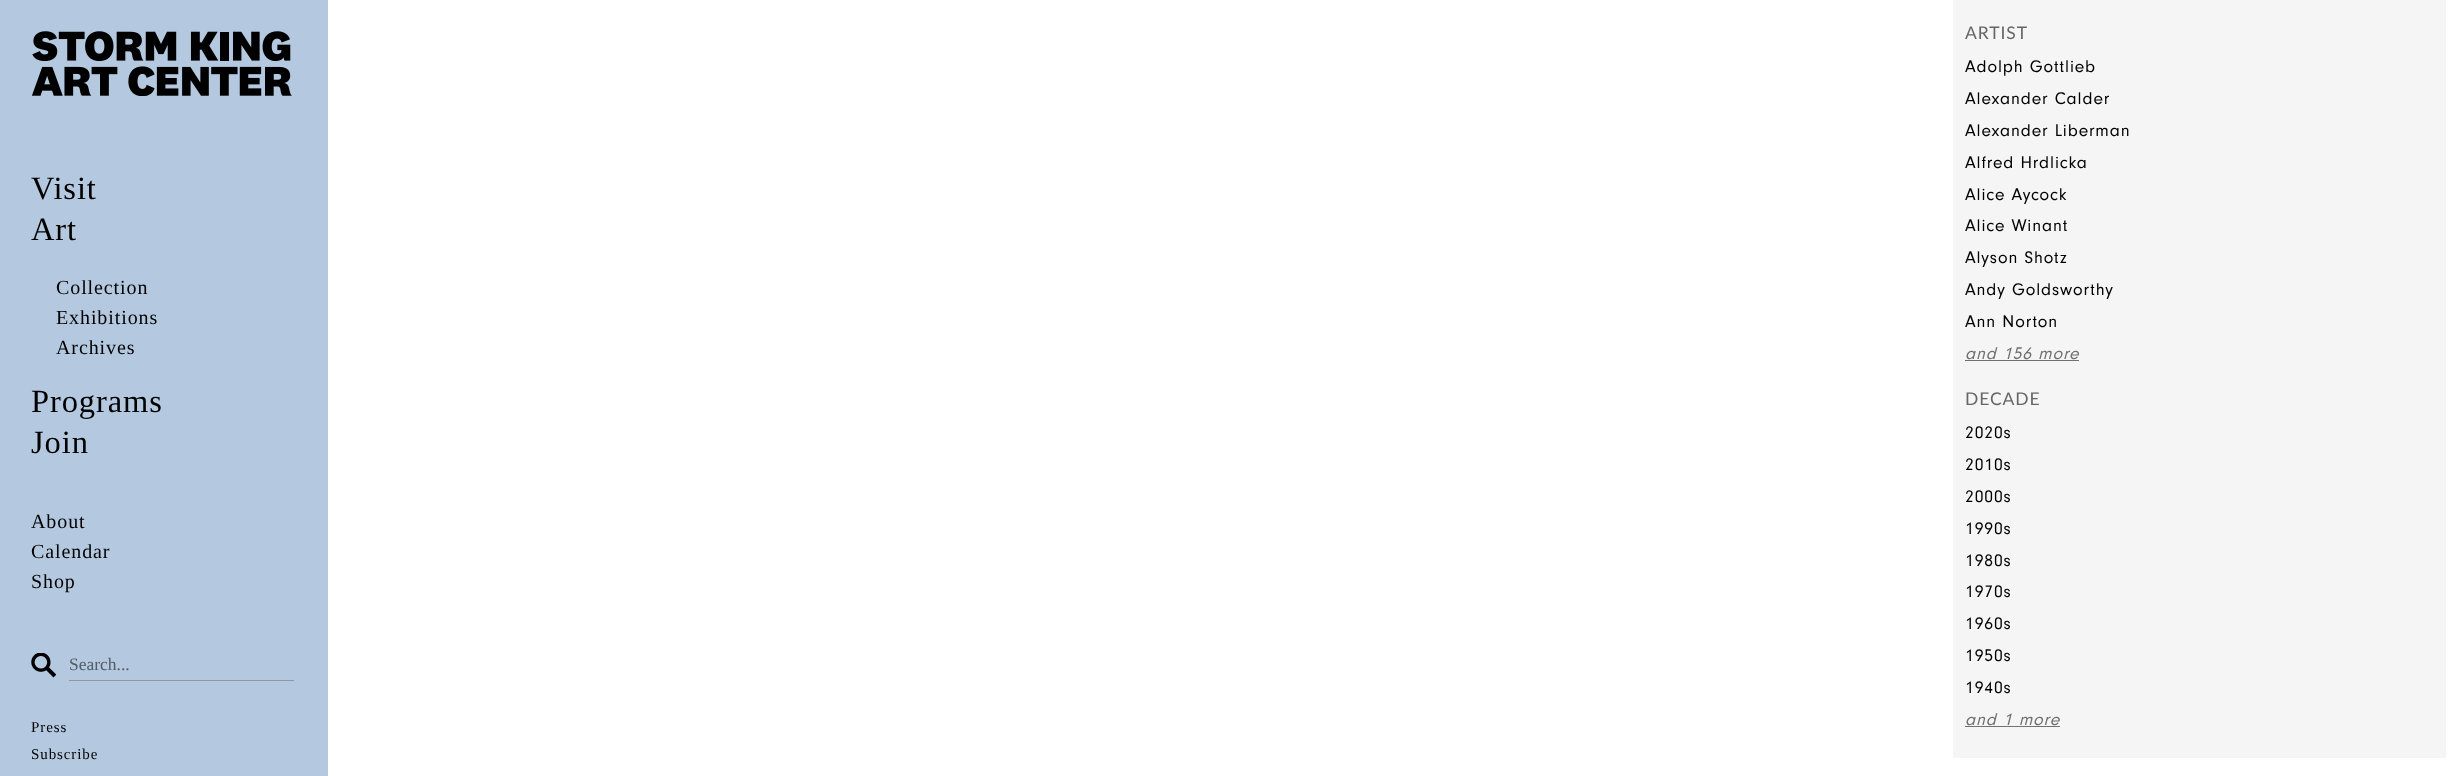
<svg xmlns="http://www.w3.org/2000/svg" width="2464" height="776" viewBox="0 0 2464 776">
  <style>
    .t1 { font: 32.5px Liberation Serif; letter-spacing: 0.9px; fill: #000; }
    .t2 { font: 20px Liberation Serif; letter-spacing: 0.9px; fill: #000; }
    .t3 { font: 17.5px Liberation Serif; fill: #525c67; }
    .t4 { font: 15px Liberation Serif; letter-spacing: 0.9px; fill: #000; }
    .t5 { font: 17.5px Lato; letter-spacing: 0.9px; fill: #666; }
    .t6 { font: 17.5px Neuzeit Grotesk; letter-spacing: 0.9px; fill: #000; }
    .t7 { font: italic 17.5px Neuzeit Grotesk; letter-spacing: 0.9px; fill: #707070; }
  </style>
  <rect width="100%" height="100%" fill="#fff"/>
  <rect x="0" y="0" width="328" height="776" fill="#b4c9e0"/>
  <image x="32" y="31" width="260" height="65" href="images/1.png"/>
  <text x="31" y="199" class="t1">Visit</text>
  <text x="31" y="240" class="t1">Art</text>
  <text x="56" y="294" class="t2">Collection</text>
  <text x="56" y="324" class="t2">Exhibitions</text>
  <text x="56" y="354" class="t2">Archives</text>
  <text x="31" y="412" class="t1">Programs</text>
  <text x="31" y="453" class="t1">Join</text>
  <text x="31" y="528" class="t2">About</text>
  <text x="31" y="558" class="t2">Calendar</text>
  <text x="31" y="588" class="t2">Shop</text>
  <image x="31" y="653" width="25" height="25" href="images/2.png"/>
  <rect x="69" y="680" width="225" height="1" fill="#989697"/>
  <text x="69" y="670" class="t3">Search...</text>
  <text x="31" y="732" class="t4">Press</text>
  <text x="31" y="759" class="t4">Subscribe</text>
  <rect x="1953" y="0" width="493" height="758" fill="#f5f5f5"/>
  <text x="1965" y="39" class="t5">ARTIST</text>
  <text x="1965" y="72" class="t6">Adolph Gottlieb</text>
  <text x="1965" y="104" class="t6">Alexander Calder</text>
  <text x="1965" y="136" class="t6">Alexander Liberman</text>
  <text x="1965" y="168" class="t6">Alfred Hrdlicka</text>
  <text x="1965" y="200" class="t6">Alice Aycock</text>
  <text x="1965" y="231" class="t6">Alice Winant</text>
  <text x="1965" y="263" class="t6">Alyson Shotz</text>
  <text x="1965" y="295" class="t6">Andy Goldsworthy</text>
  <text x="1965" y="327" class="t6">Ann Norton</text>
  <text x="1965" y="359" class="t7">and 156 more</text>
  <rect x="1965" y="360" width="114" height="1" fill="#707070"/>
  <text x="1965" y="405" class="t5">DECADE</text>
  <text x="1965" y="438" class="t6">2020s</text>
  <text x="1965" y="470" class="t6">2010s</text>
  <text x="1965" y="502" class="t6">2000s</text>
  <text x="1965" y="534" class="t6">1990s</text>
  <text x="1965" y="566" class="t6">1980s</text>
  <text x="1965" y="597" class="t6">1970s</text>
  <text x="1965" y="629" class="t6">1960s</text>
  <text x="1965" y="661" class="t6">1950s</text>
  <text x="1965" y="693" class="t6">1940s</text>
  <text x="1965" y="725" class="t7">and 1 more</text>
  <rect x="1965" y="726" width="95" height="1" fill="#707070"/>
</svg>
